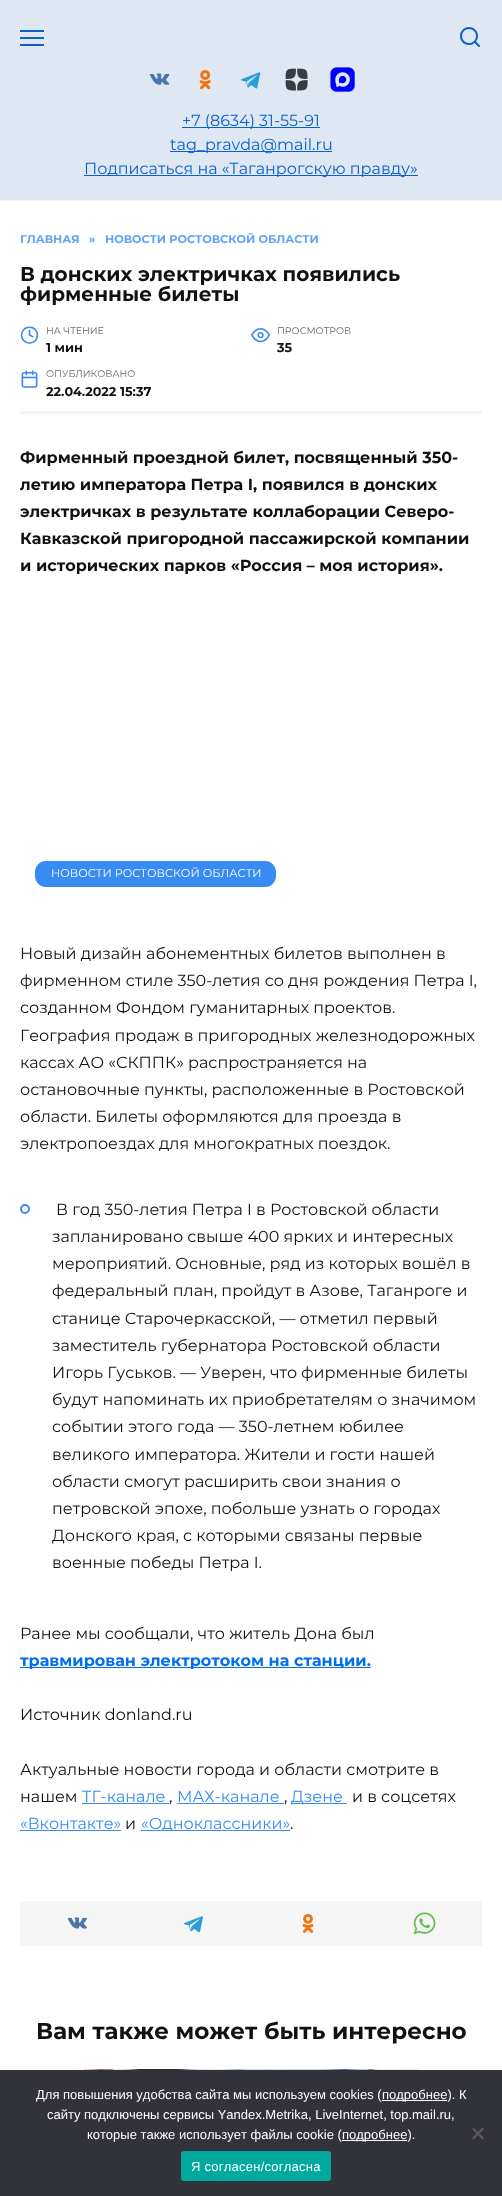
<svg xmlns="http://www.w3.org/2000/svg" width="502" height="2196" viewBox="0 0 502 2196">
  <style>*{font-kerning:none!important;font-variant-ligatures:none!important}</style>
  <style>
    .t1 { font: 24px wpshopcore; fill: #0861ce; }
    .t2 { font: 16px Montserrat; fill: #0861ce; }
    .t3 { font: bold 11.25px Montserrat; fill: #5fa2f5; }
    .t4 { font: bold 20px Montserrat; fill: #111; }
    .t5 { font: 19px wpshopcore; fill: #378bf2; }
    .t6 { font: 9.5px Montserrat; fill: #666; }
    .t7 { font: bold 12.75px Montserrat; fill: #111; }
    .t8 { font: bold 16px Montserrat; fill: #111; }
    .t9 { font: 11.25px Montserrat; fill: #fff; }
    .t10 { font: 16px Montserrat; fill: #111; }
    .t11 { font: bold 16px Montserrat; fill: #006df2; }
    .t12 { font: 16px Montserrat; fill: #378bf2; }
    .t13 { font: bold 23px Montserrat; fill: #111; }
    .t14 { font: 13px Liberation Sans; fill: #fff; }
    .t15 { font: 13px Liberation Sans; letter-spacing: 0.25px; fill: #fff; }
  </style>
  <rect width="100%" height="100%" fill="#fff"/>
  <rect x="0" y="0" width="502" height="200" fill="#dee7f2"/>
  <rect x="0" y="200" width="502" height="1" fill="#f2f5f9"/>
  <rect x="20" y="30" width="24" height="2" fill="#0861ce"/>
  <rect x="20" y="37" width="24" height="2" fill="#0861ce"/>
  <rect x="20" y="44" width="24" height="2" fill="#0861ce"/>
  <text x="458" y="47" class="t1">🔍</text>
  <image x="149" y="73" width="21" height="12" href="images/1.png"/>
  <image x="199" y="70" width="12" height="20" href="images/2.png"/>
  <image x="240" y="72" width="21" height="17" href="images/3.png"/>
  <image x="285" y="68" width="23" height="23" href="images/4.png"/>
  <image x="330" y="67" width="25" height="25" href="images/5.png"/>
  <rect x="182" y="127" width="138" height="1" fill="#0861ce"/>
  <text x="182" y="126" class="t2">+7 (8634) 31-55-91</text>
  <rect x="170" y="151" width="162" height="1" fill="#0861ce"/>
  <text x="170" y="150" class="t2">tag_pravda@mail.ru</text>
  <rect x="84" y="175" width="334" height="1" fill="#0861ce"/>
  <text x="84" y="174" class="t2">Подписаться на «Таганрогскую правду»</text>
  <text x="20" y="243" class="t3">ГЛАВНАЯ</text>
  <text x="89" y="243" class="t3">»</text>
  <text x="105" y="243" class="t3">НОВОСТИ РОСТОВСКОЙ ОБЛАСТИ</text>
  <text x="20" y="281" class="t4">В донских электричках появились</text>
  <text x="20" y="301" class="t4">фирменные билеты</text>
  <rect x="20" y="411" width="462" height="3" fill="#f2f2f2"/>
  <text x="20" y="343" class="t5">🕒</text>
  <text x="46" y="334" class="t6">НА ЧТЕНИЕ</text>
  <text x="46" y="352" class="t7">1 мин</text>
  <text x="251" y="343" class="t5">👀</text>
  <text x="277" y="334" class="t6">ПРОСМОТРОВ</text>
  <text x="277" y="352" class="t7">35</text>
  <text x="20" y="387" class="t5">📅</text>
  <text x="46" y="377" class="t6">ОПУБЛИКОВАНО</text>
  <text x="46" y="396" class="t7">22.04.2022 15:37</text>
  <text x="20" y="463" class="t8">Фирменный проездной билет, посвященный 350-</text>
  <text x="20" y="490" class="t8">летию императора Петра I, появился в донских</text>
  <text x="20" y="517" class="t8">электричках в результате коллаборации Северо-</text>
  <text x="20" y="544" class="t8">Кавказской пригородной пассажирской компании</text>
  <text x="20" y="571" class="t8">и исторических парков «Россия – моя история».</text>
  <rect x="35" y="861" width="241" height="26" rx="11" fill="#378bf2"/>
  <text x="51" y="877" class="t9">НОВОСТИ РОСТОВСКОЙ ОБЛАСТИ</text>
  <text x="20" y="959" class="t10">Новый дизайн абонементных билетов выполнен в</text>
  <text x="20" y="986" class="t10">фирменном стиле 350-летия со дня рождения Петра I,</text>
  <text x="20" y="1013" class="t10">созданном Фондом гуманитарных проектов.</text>
  <text x="20" y="1041" class="t10">География продаж в пригородных железнодорожных</text>
  <text x="20" y="1068" class="t10">кассах АО «СКППК» распространяется на</text>
  <text x="20" y="1095" class="t10">остановочные пункты, расположенные в Ростовской</text>
  <text x="20" y="1122" class="t10">области. Билеты оформляются для проезда в</text>
  <text x="20" y="1149" class="t10">электропоездах для многократных поездок.</text>
  <circle cx="25" cy="1209" r="4" fill="none" stroke="#378bf2" stroke-width="2"/>
  <text x="56" y="1215" class="t10">В год 350-летия Петра I в Ростовской области</text>
  <text x="52" y="1242" class="t10">запланировано свыше 400 ярких и интересных</text>
  <text x="52" y="1269" class="t10">мероприятий. Основные, ряд из которых вошёл в</text>
  <text x="52" y="1296" class="t10">федеральный план, пройдут в Азове, Таганроге и</text>
  <text x="52" y="1324" class="t10">станице Старочеркасской, — отметил первый</text>
  <text x="52" y="1351" class="t10">заместитель губернатора Ростовской области</text>
  <text x="52" y="1378" class="t10">Игорь Гуськов. — Уверен, что</text>
  <text x="301" y="1378" class="t10">фирменные билеты</text>
  <text x="52" y="1405" class="t10">будут напоминать их приобретателям о значимом</text>
  <text x="52" y="1432" class="t10">событии этого года — 350-летнем юбилее</text>
  <text x="52" y="1460" class="t10">великого императора. Жители и гости нашей</text>
  <text x="52" y="1487" class="t10">области смогут расширить свои знания о</text>
  <text x="52" y="1514" class="t10">петровской эпохе, побольше узнать о городах</text>
  <text x="52" y="1541" class="t10">Донского края, с которыми связаны первые</text>
  <text x="52" y="1568" class="t10">военные победы Петра I.</text>
  <text x="20" y="1639" class="t10">Ранее мы сообщали, что житель Дона был</text>
  <rect x="20" y="1667" width="351" height="1" fill="#006df2"/>
  <text x="20" y="1666" class="t11">травмирован электротоком на станции.</text>
  <text x="20" y="1720" class="t10">Источник donland.ru</text>
  <text x="20" y="1775" class="t10">Актуальные новости города и области смотрите в</text>
  <text x="20" y="1802" class="t10">нашем</text>
  <text x="82" y="1802" class="t12">ТГ-канале</text>
  <rect x="82" y="1803" width="87" height="1" fill="#378bf2"/>
  <text x="169" y="1802" class="t10">,</text>
  <text x="177" y="1802" class="t12">МАХ-канале</text>
  <rect x="177" y="1803" width="107" height="1" fill="#378bf2"/>
  <text x="284" y="1802" class="t10">,</text>
  <rect x="291" y="1803" width="56" height="1" fill="#378bf2"/>
  <text x="291" y="1802" class="t12">Дзене</text>
  <text x="352" y="1802" class="t10">и в соцсетях</text>
  <text x="20" y="1829" class="t12">«Вконтакте»</text>
  <rect x="20" y="1830" width="101" height="1" fill="#378bf2"/>
  <text x="125" y="1829" class="t10">и</text>
  <rect x="141" y="1830" width="149" height="1" fill="#378bf2"/>
  <text x="141" y="1829" class="t12">«Одноклассники»</text>
  <text x="290" y="1829" class="t10">.</text>
  <rect x="20" y="1901" width="462" height="45" fill="#f5f5f5"/>
  <image x="67" y="1917" width="20" height="12" href="images/6.png"/>
  <image x="183" y="1916" width="20" height="17" href="images/7.png"/>
  <image x="302" y="1914" width="12" height="19" href="images/8.png"/>
  <image x="413" y="1912" width="23" height="23" href="images/9.png"/>
  <text x="36" y="2039" class="t13">Вам также может быть интересно</text>
  <image x="84" y="2069" width="335" height="1" href="images/10.png"/>
  <rect x="0" y="2070" width="502" height="126" fill="#32323a"/>
  <text x="36" y="2099" class="t14">Для повышения удобства сайта мы используем cookies (</text>
  <rect x="382" y="2100" width="65" height="1" fill="#fff"/>
  <text x="382" y="2099" class="t14">подробнее). К</text>
  <text x="47" y="2119" class="t14">сайту подключены сервисы Yandex.Metrika, LiveInternet, top.mail.ru,</text>
  <text x="87" y="2139" class="t14">которые также использует файлы cookie (</text>
  <rect x="342" y="2140" width="65" height="1" fill="#fff"/>
  <text x="342" y="2139" class="t14">подробнее).</text>
  <path d="M482.5 2127.5L484 2129L473.5 2139.5L472 2138Z" fill="#59595d"/>
  <path d="M472 2129L473.5 2127.5L484 2138L482.5 2139.5Z" fill="#59595d"/>
  <rect x="181" y="2151" width="150" height="30" rx="3" fill="#00a99d"/>
  <text x="191" y="2171" class="t15">Я согласен/согласна</text>
</svg>
